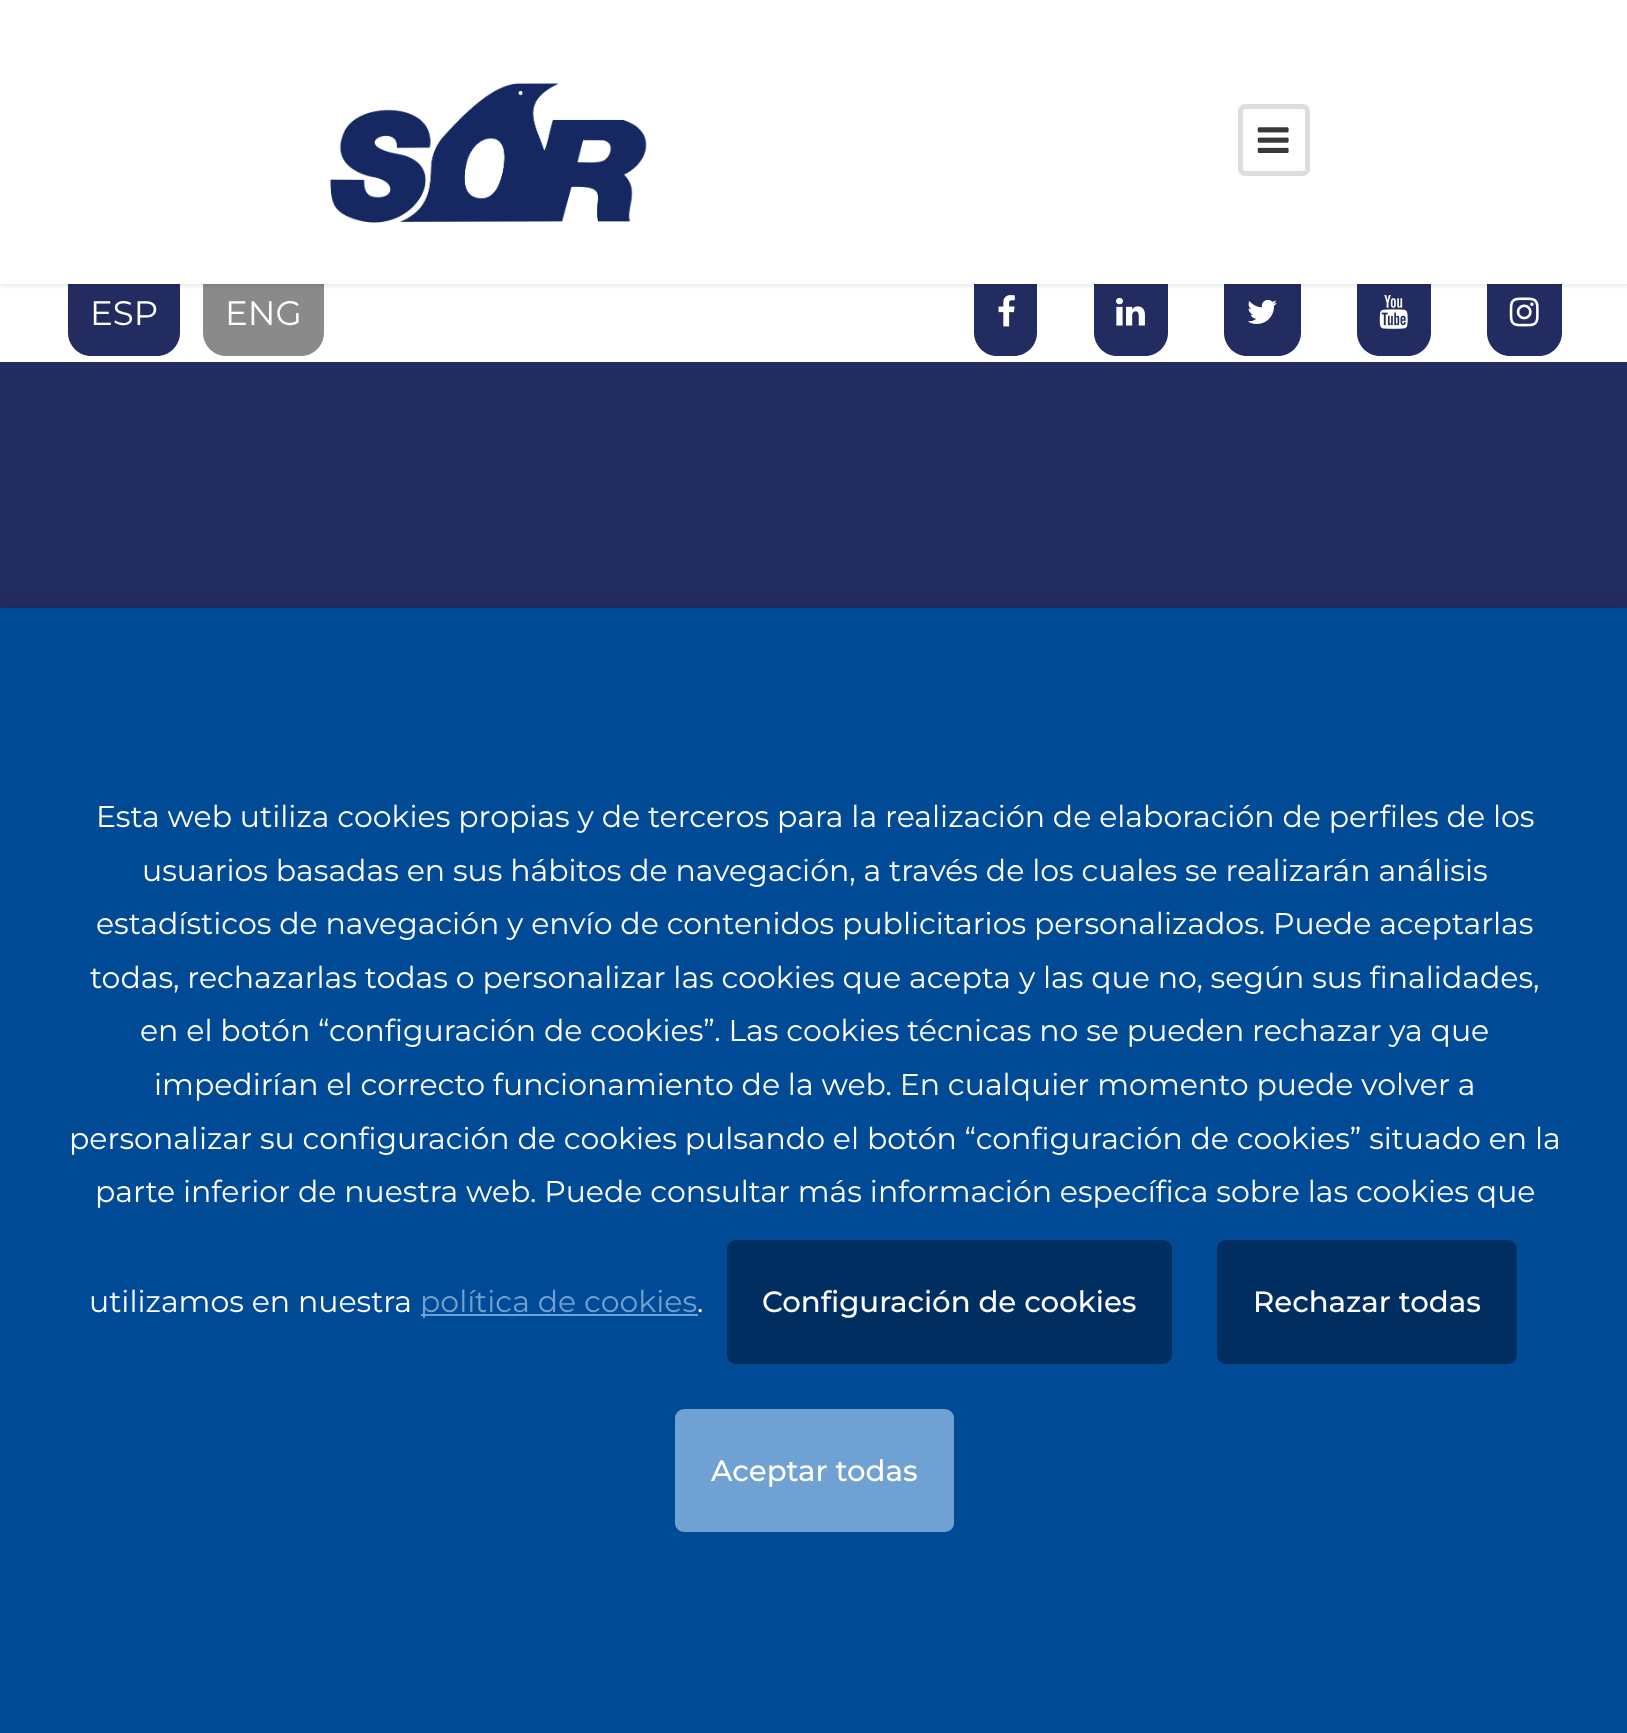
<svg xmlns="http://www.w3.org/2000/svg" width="1627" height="1733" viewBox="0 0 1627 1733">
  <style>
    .t1 { font: 34px Montserrat; fill: #fff; }
    .t2 { font: 30px Montserrat; fill: #fff; }
    .t3 { font: 30px Montserrat; fill: #70a1d3; }
    .t4 { font: 500 29.25px Montserrat; fill: #fff; }
  </style>
  <defs>
    <clipPath id="clip1"><path d="M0 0H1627V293H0ZM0 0H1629V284H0Z" clip-rule="evenodd"/></clipPath>
  </defs>
  <rect width="100%" height="100%" fill="#fff"/>
  <path d="M68 284H180V333C180 345.5 169.5 356 157 356H91C78.5 356 68 345.5 68 333Z" fill="#222c60"/>
  <path d="M203 284H324V333C324 345.5 313.5 356 301 356H226C213.5 356 203 345.5 203 333Z" fill="#8a8a8a"/>
  <path d="M974 284H1037V333C1037 345.5 1026.5 356 1014 356H997C984.5 356 974 345.5 974 333Z" fill="#222c60"/>
  <path d="M1094 284H1168V333C1168 345.5 1157.5 356 1145 356H1117C1104.5 356 1094 345.5 1094 333Z" fill="#222c60"/>
  <path d="M1224 284H1301V333C1301 345.5 1290.5 356 1278 356H1247C1234.5 356 1224 345.5 1224 333Z" fill="#222c60"/>
  <path d="M1357 284H1431V333C1431 345.5 1420.5 356 1408 356H1380C1367.5 356 1357 345.5 1357 333Z" fill="#222c60"/>
  <path d="M1487 284H1562V333C1562 345.5 1551.5 356 1539 356H1510C1497.5 356 1487 345.5 1487 333Z" fill="#222c60"/>
  <g clip-path="url(#clip1)">
    <rect x="0" y="2" width="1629" height="284" fill="#0000001a" filter="blur(2px)"/>
  </g>
  <image x="330" y="83" width="317" height="140" href="images/1.png"/>
  <rect x="1240.5" y="106.5" width="67" height="67" rx="4.5" fill="none" stroke="#ddd" stroke-width="5"/>
  <image x="1257" y="127" width="32" height="26" href="images/2.png"/>
  <text x="90" y="325" class="t1">ESP</text>
  <text x="225" y="325" class="t1">ENG</text>
  <image x="998" y="295" width="17" height="32" href="images/3.png"/>
  <image x="1116" y="297" width="29" height="29" href="images/4.png"/>
  <image x="1247" y="299" width="30" height="25" href="images/5.png"/>
  <image x="1379" y="295" width="29" height="34" href="images/6.png"/>
  <image x="1509" y="297" width="30" height="30" href="images/7.png"/>
  <rect x="0" y="362" width="1627" height="246" fill="#222c60"/>
  <rect x="0" y="619" width="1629" height="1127" fill="#00000080" filter="blur(11px)"/>
  <rect x="0" y="608" width="1627" height="1125" fill="#004a96"/>
  <text x="96" y="827" class="t2">Esta web utiliza cookies propias y de terceros para la realización de elaboración de perfiles de los</text>
  <text x="142" y="881" class="t2">usuarios basadas en sus hábitos de navegación, a través de los cuales se realizarán análisis</text>
  <text x="96" y="934" class="t2">estadísticos de navegación y envío de contenidos publicitarios personalizados. Puede aceptarlas</text>
  <text x="90" y="988" class="t2">todas, rechazarlas todas o personalizar las cookies que acepta y las que no, según sus finalidades,</text>
  <text x="140" y="1041" class="t2">en el botón “configuración de cookies”. Las cookies técnicas no se pueden rechazar ya que</text>
  <text x="154" y="1095" class="t2">impedirían el correcto funcionamiento de la web. En cualquier momento puede volver a</text>
  <text x="69" y="1149" class="t2">personalizar su configuración de cookies pulsando el botón “configuración de cookies” situado en la</text>
  <text x="95" y="1202" class="t2">parte inferior de nuestra web. Puede consultar más información específica sobre las cookies que</text>
  <text x="89" y="1312" class="t2">utilizamos en nuestra</text>
  <rect x="421" y="1314" width="277" height="2" fill="#70a1d3"/>
  <text x="420" y="1312" class="t3">política de cookies</text>
  <text x="697" y="1312" class="t2">.</text>
  <rect x="727" y="1240" width="445" height="124" rx="9" fill="#002e61"/>
  <text x="762" y="1312" class="t4">Configuración de cookies</text>
  <rect x="1217" y="1240" width="300" height="124" rx="9" fill="#002e61"/>
  <text x="1253" y="1312" class="t4">Rechazar todas</text>
  <rect x="675" y="1409" width="279" height="123" rx="9" fill="#70a1d3"/>
  <text x="711" y="1481" class="t4">Aceptar todas</text>
</svg>
